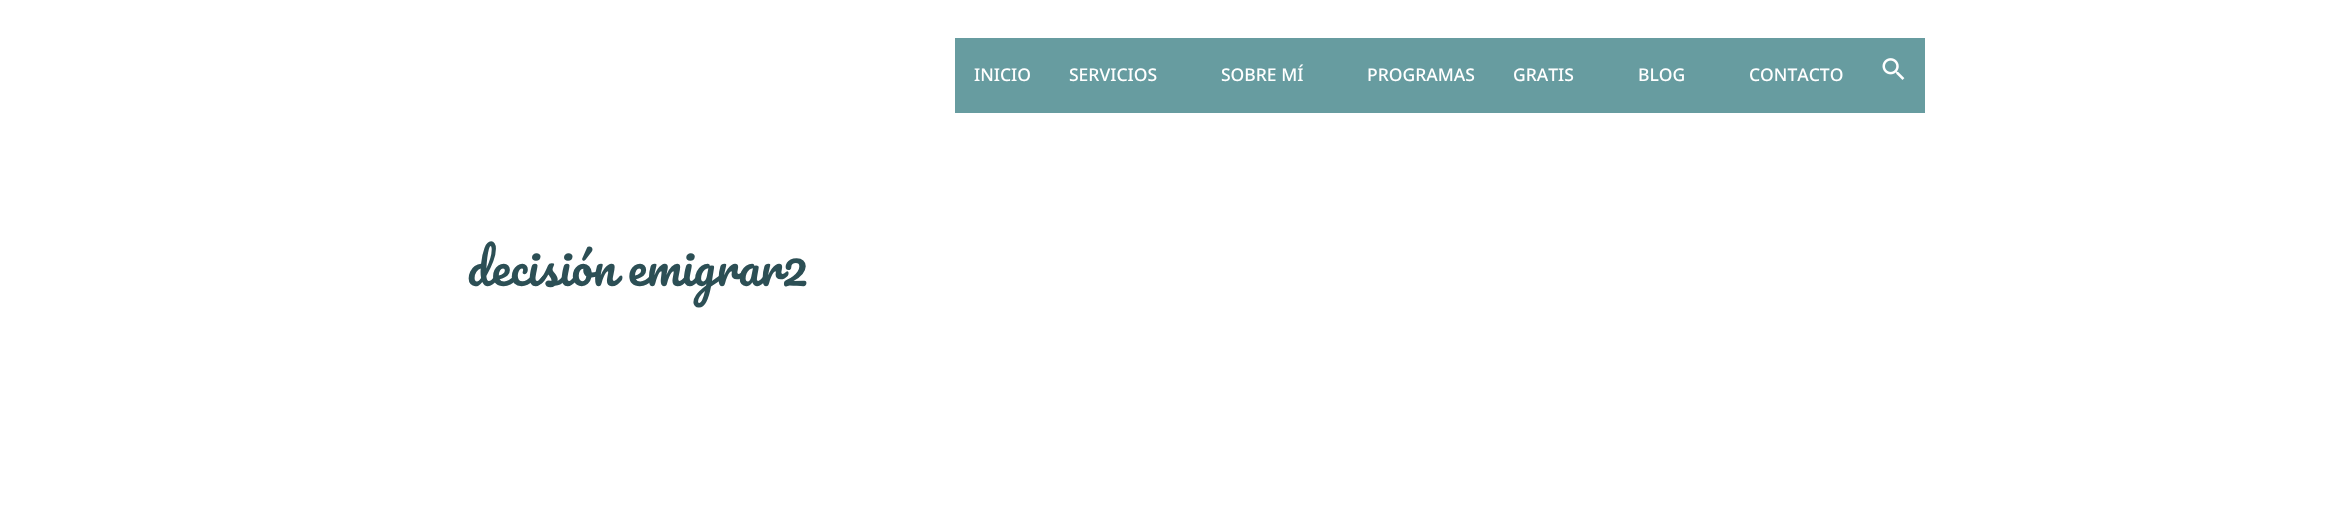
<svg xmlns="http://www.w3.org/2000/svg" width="2333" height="513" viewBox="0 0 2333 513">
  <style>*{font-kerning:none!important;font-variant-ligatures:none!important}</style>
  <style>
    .t1 { font: 500 17.5px Noto Sans; fill: #fff; }
    .t2 { font: 47.5px Pacifico; fill: #2c4f55; }
  </style>
  <rect width="100%" height="100%" fill="#fff"/>
  <rect x="955" y="38" width="970" height="75" fill="#679ca0"/>
  <text x="974" y="81" class="t1">INICIO</text>
  <text x="1069" y="81" class="t1">SERVICIOS</text>
  <text x="1221" y="81" class="t1">SOBRE MÍ</text>
  <text x="1367" y="81" class="t1">PROGRAMAS</text>
  <text x="1513" y="81" class="t1">GRATIS</text>
  <text x="1638" y="81" class="t1">BLOG</text>
  <text x="1749" y="81" class="t1">CONTACTO</text>
  <image x="1882" y="58" width="23" height="22" href="images/1.png"/>
  <text x="467" y="286" word-spacing="-1" class="t2">decisión emigrar2</text>
</svg>
